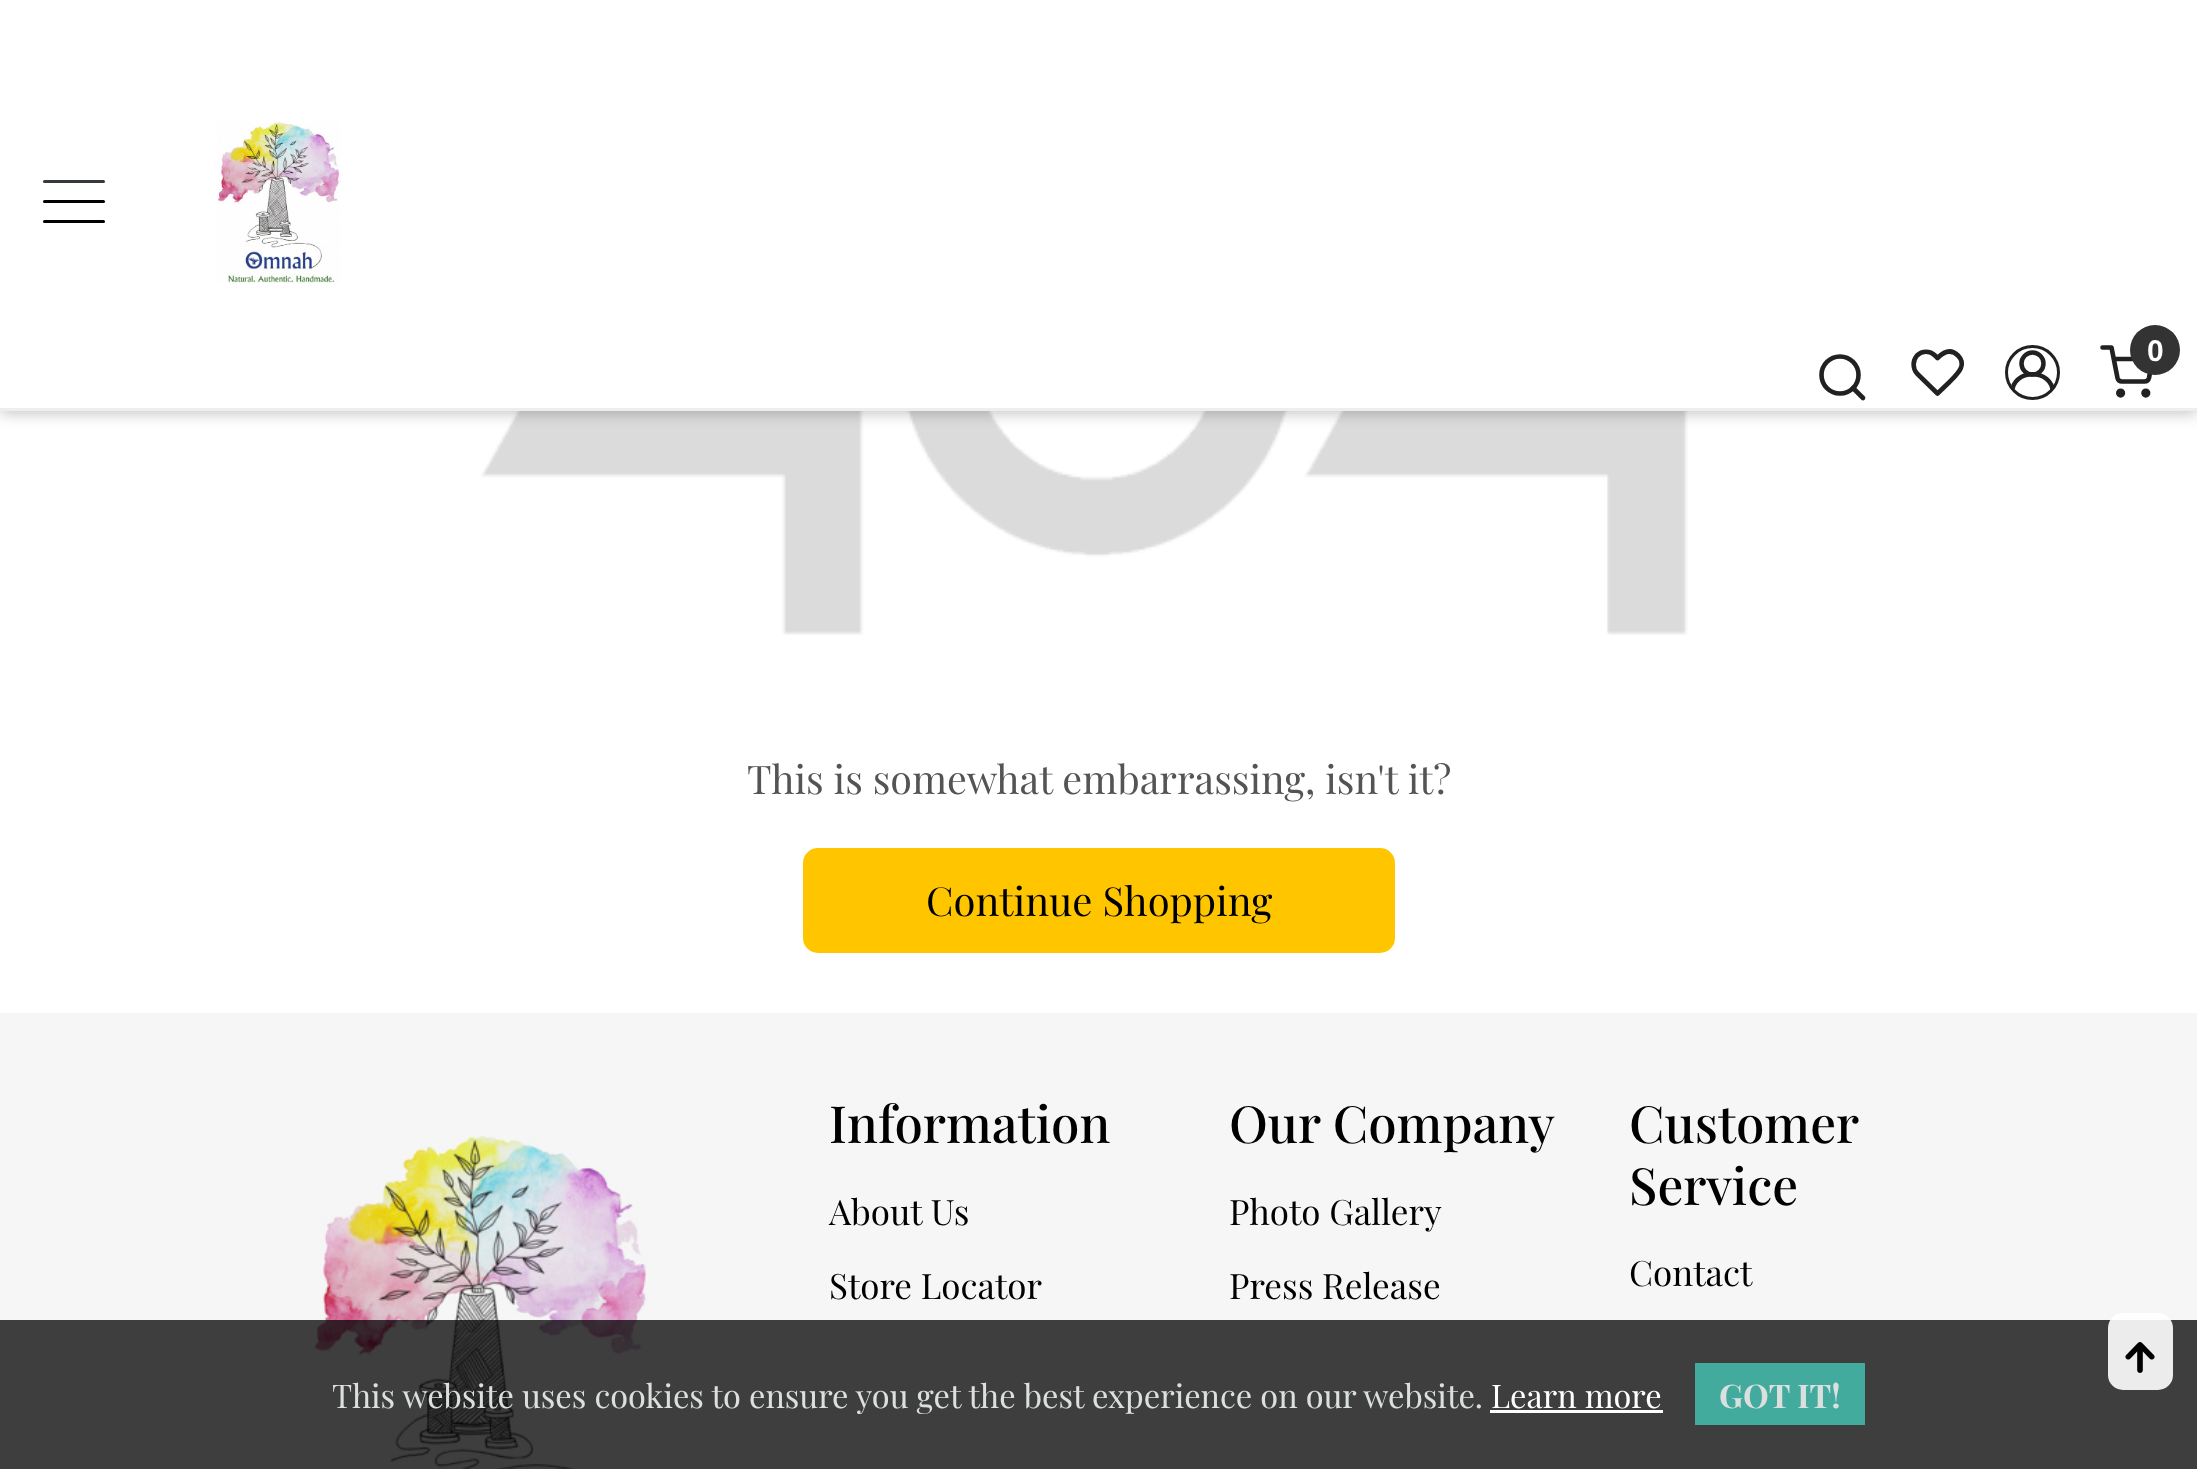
<svg xmlns="http://www.w3.org/2000/svg" width="2197" height="1469" viewBox="0 0 2197 1469">
  <style>
    .t1 { font: bold 30px Liberation Sans; fill: #fff; }
    .t2 { font: 39.5px Playfair Display; fill: #545454; }
    .t3 { font: 40px Playfair Display; fill: #000; }
    .t4 { font: 500 51.25px Playfair Display; fill: #000; }
    .t5 { font: 35px Playfair Display; fill: #000; }
    .t6 { font: 32.5px Playfair Display; fill: #dbe0df; }
    .t7 { font: 32.5px Playfair Display; fill: #fff; }
    .t8 { font: bold 32.5px Playfair Display; fill: #dbe0df; }
  </style>
  <defs>
    <clipPath id="clip1"><rect x="2008" y="348" width="50" height="50" rx="25"/></clipPath>
  </defs>
  <rect width="100%" height="100%" fill="#fff"/>
  <image x="481" y="411" width="1207" height="224" href="images/2.png"/>
  <rect x="0" y="3" width="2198" height="410" fill="#20212447" filter="blur(7.5px)"/>
  <rect x="0" y="408" width="2197" height="3" fill="#eee"/>
  <rect x="0" y="0" width="2197" height="408" fill="#fff"/>
  <rect x="43" y="220" width="62" height="3" rx="1.5" fill="#000"/>
  <rect x="43" y="200" width="62" height="3" rx="1.5" fill="#000"/>
  <rect x="43" y="180" width="62" height="3" rx="1.5" fill="#343a40"/>
  <image x="217" y="121" width="124" height="162" href="images/1.png"/>
  <circle cx="1840" cy="375" r="18.5" fill="none" stroke="#212121" stroke-width="4.6"/>
  <path d="M1863 398L1853 388" fill="none" stroke="#212121" stroke-width="4.6" stroke-linecap="round" stroke-linejoin="round"/>
  <path d="M1958 355.5C1951 348.5 1943.5 352 1937.5 358L1935 355.5C1930 350.5 1922 350.5 1917 355.5C1912.5 360.5 1912.5 368.5 1917 373.5L1937.5 393.5L1949.5 382C1956 375 1968 365.5 1958 355.5Z" fill="none" stroke="#212121" stroke-width="4.6" stroke-linecap="round" stroke-linejoin="round"/>
  <circle cx="2032.5" cy="372.5" r="26" fill="none" stroke="#212121" stroke-width="3"/>
  <g clip-path="url(#clip1)">
    <path d="M2012 393C2012 368 2053 368 2053 393" fill="none" stroke="#212121" stroke-width="4.5" stroke-linecap="square"/>
  </g>
  <circle cx="2032.5" cy="363.5" r="11" fill="none" stroke="#212121" stroke-width="4.5"/>
  <path d="M2102.5 347.5H2111.5L2117.5 378C2118 380 2120 381.5 2122 381.5H2144.5C2146.5 381.5 2148.5 380 2149 378L2152.5 359H2114" fill="none" stroke="#212121" stroke-width="4.6" stroke-linecap="round" stroke-linejoin="round"/>
  <circle cx="2155" cy="350" r="25" fill="#333"/>
  <text x="2147" y="361" class="t1">0</text>
  <circle cx="2120.6" cy="393.1" r="2.3" fill="none" stroke="#212121" stroke-width="4.6"/>
  <circle cx="2145.8" cy="393.1" r="2.3" fill="none" stroke="#212121" stroke-width="4.6"/>
  <text x="747" y="794" class="t2">This is somewhat embarrassing, isn't it?</text>
  <rect x="804.5" y="849.5" width="589" height="102" rx="13.5" fill="#ffc600" stroke="#ffc600" stroke-width="3"/>
  <text x="926" y="916" class="t3">Continue Shopping</text>
  <rect x="0" y="1013" width="2197" height="456" fill="#f6f6f6"/>
  <image x="314" y="1135" width="333" height="334" href="images/3.png"/>
  <text x="829" y="1143" class="t4">Information</text>
  <text x="829" y="1225" class="t5">About Us</text>
  <text x="829" y="1299" class="t5">Store Locator</text>
  <text x="1229" y="1143" class="t4">Our Company</text>
  <text x="1229" y="1225" class="t5">Photo Gallery</text>
  <text x="1229" y="1299" class="t5">Press Release</text>
  <text x="1629" y="1143" class="t4">Customer</text>
  <text x="1629" y="1205" class="t4">Service</text>
  <text x="1629" y="1286" class="t5">Contact</text>
  <rect x="0" y="1320" width="2197" height="149" fill="#000000bf"/>
  <rect x="2108" y="1313" width="65" height="77" rx="15" fill="#ffffffe6"/>
  <image x="2125" y="1342" width="30" height="31" href="images/4.png"/>
  <text x="332" y="1408" class="t6">This website uses cookies to ensure you get the best experience on our website.</text>
  <text x="1491" y="1408" class="t7">Learn more</text>
  <rect x="1490" y="1410" width="173" height="3" fill="#fff"/>
  <rect x="1695" y="1363" width="170" height="62" fill="#42ab9e"/>
  <text x="1719" y="1408" class="t8">GOT IT!</text>
</svg>
